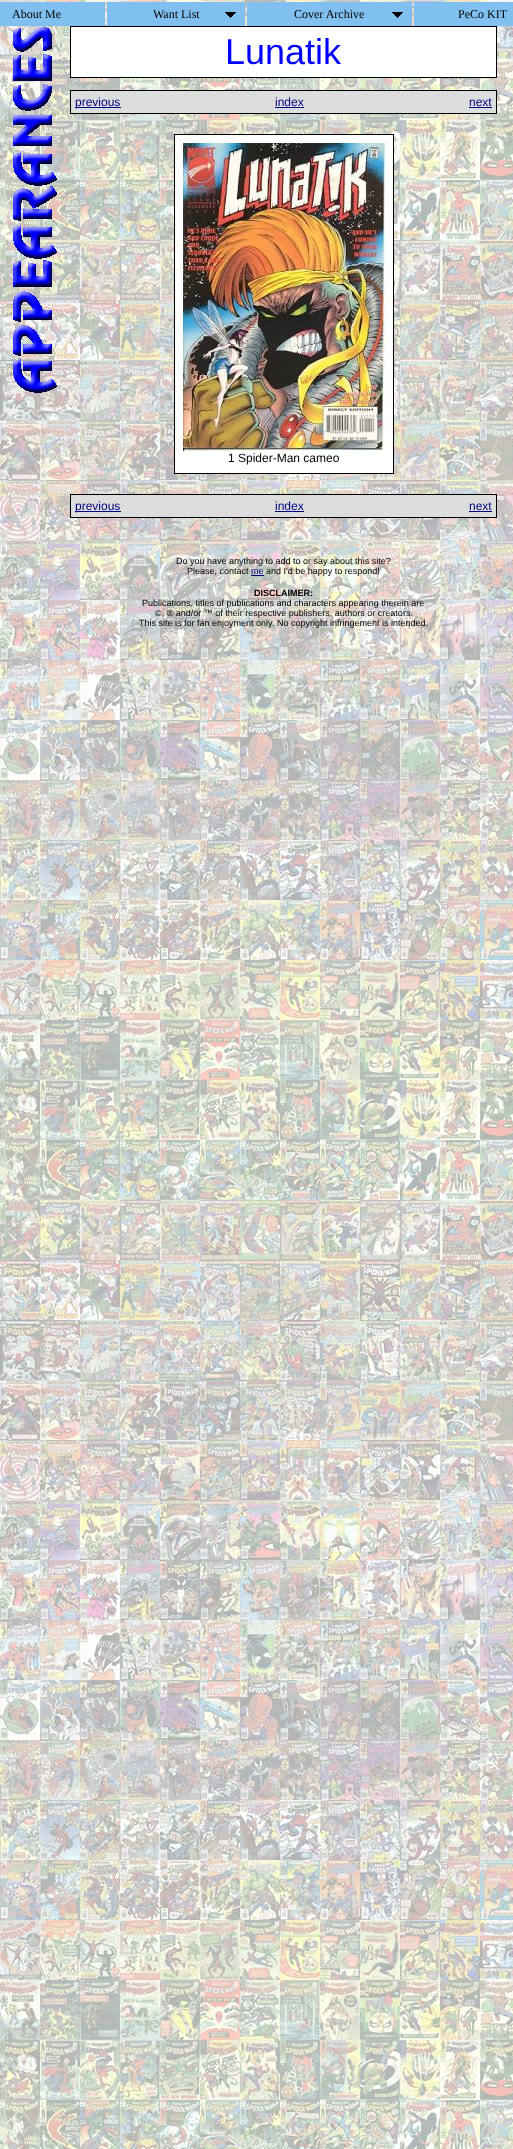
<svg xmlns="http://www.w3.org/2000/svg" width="513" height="2149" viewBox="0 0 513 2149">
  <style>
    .t1 { font: 12px Liberation Serif; fill: #000; }
    .t2 { font: 36px Liberation Sans; fill: #00f; }
    .t3 { font: 12px Liberation Sans; fill: #000080; }
    .t4 { font: 12px Liberation Sans; fill: #000; }
    .t5 { font: 9px Liberation Sans; fill: #000; }
    .t6 { font: 9px Liberation Sans; fill: #000080; }
    .t7 { font: bold 9px Liberation Sans; fill: #000; }
  </style>
  <rect width="100%" height="100%" fill="#fff"/>
  <image x="0" y="0" width="513" height="2149" href="images/1.png"/>
  <rect x="0" y="2" width="105" height="24" fill="#80c0f0"/>
  <text x="12" y="18" class="t1">About Me</text>
  <rect x="107" y="2" width="138" height="24" fill="#80c0f0"/>
  <text x="153" y="18" class="t1">Want List</text>
  <image x="225" y="12" width="11" height="6" href="images/2.png"/>
  <rect x="247" y="2" width="165" height="24" fill="#80c0f0"/>
  <text x="294" y="18" class="t1">Cover Archive</text>
  <image x="392" y="12" width="11" height="6" href="images/2.png"/>
  <rect x="414" y="2" width="99" height="24" fill="#80c0f0"/>
  <text x="458" y="18" class="t1">PeCo KIT</text>
  <image x="13" y="27" width="44" height="366" href="images/3.png"/>
  <rect x="70" y="26" width="427" height="1" fill="#000"/>
  <rect x="496" y="26" width="1" height="52" fill="#000"/>
  <rect x="70" y="77" width="427" height="1" fill="#000"/>
  <rect x="70" y="26" width="1" height="52" fill="#000"/>
  <rect x="71" y="27" width="425" height="50" fill="#fff"/>
  <text x="225" y="64" class="t2">Lunatik</text>
  <rect x="70" y="90" width="427" height="1" fill="#000"/>
  <rect x="496" y="90" width="1" height="24" fill="#000"/>
  <rect x="70" y="113" width="427" height="1" fill="#000"/>
  <rect x="70" y="90" width="1" height="24" fill="#000"/>
  <rect x="71" y="91" width="425" height="22" fill="#ddd"/>
  <rect x="75" y="107" width="46" height="1" fill="#000080"/>
  <text x="75" y="106" class="t3">previous</text>
  <text x="275" y="106" class="t3">index</text>
  <rect x="275" y="107" width="29" height="1" fill="#000080"/>
  <text x="469" y="106" class="t3">next</text>
  <rect x="469" y="107" width="23" height="1" fill="#000080"/>
  <rect x="174.5" y="134.5" width="219" height="339" fill="#fff" stroke="#000"/>
  <image x="183" y="143" width="202" height="308" href="images/4.png"/>
  <text x="228" y="462" class="t4">1 Spider-Man cameo</text>
  <rect x="70" y="494" width="427" height="1" fill="#000"/>
  <rect x="496" y="494" width="1" height="24" fill="#000"/>
  <rect x="70" y="517" width="427" height="1" fill="#000"/>
  <rect x="70" y="494" width="1" height="24" fill="#000"/>
  <rect x="71" y="495" width="425" height="22" fill="#ddd"/>
  <rect x="75" y="511" width="46" height="1" fill="#000080"/>
  <text x="75" y="510" class="t3">previous</text>
  <text x="275" y="510" class="t3">index</text>
  <rect x="275" y="511" width="29" height="1" fill="#000080"/>
  <text x="469" y="510" class="t3">next</text>
  <rect x="469" y="511" width="23" height="1" fill="#000080"/>
  <text x="176" y="564" class="t5">Do you have anything to add to or say about this site?</text>
  <text x="187" y="574" class="t5">Please, contact</text>
  <text x="251" y="574" class="t6">me</text>
  <rect x="251" y="575" width="13" height="1" fill="#000080"/>
  <text x="266" y="574" class="t5">and I'd be happy to respond!</text>
  <text x="254" y="596" class="t7">DISCLAIMER:</text>
  <text x="142" y="606" class="t5">Publications, titles of publications and characters appearing therein are</text>
  <text x="155" y="616" class="t5">©, ® and/or ™ of their respective publishers, authors or creators.</text>
  <text x="139" y="626" class="t5">This site is for fan enjoyment only. No copyright infringement is intended.</text>
</svg>
